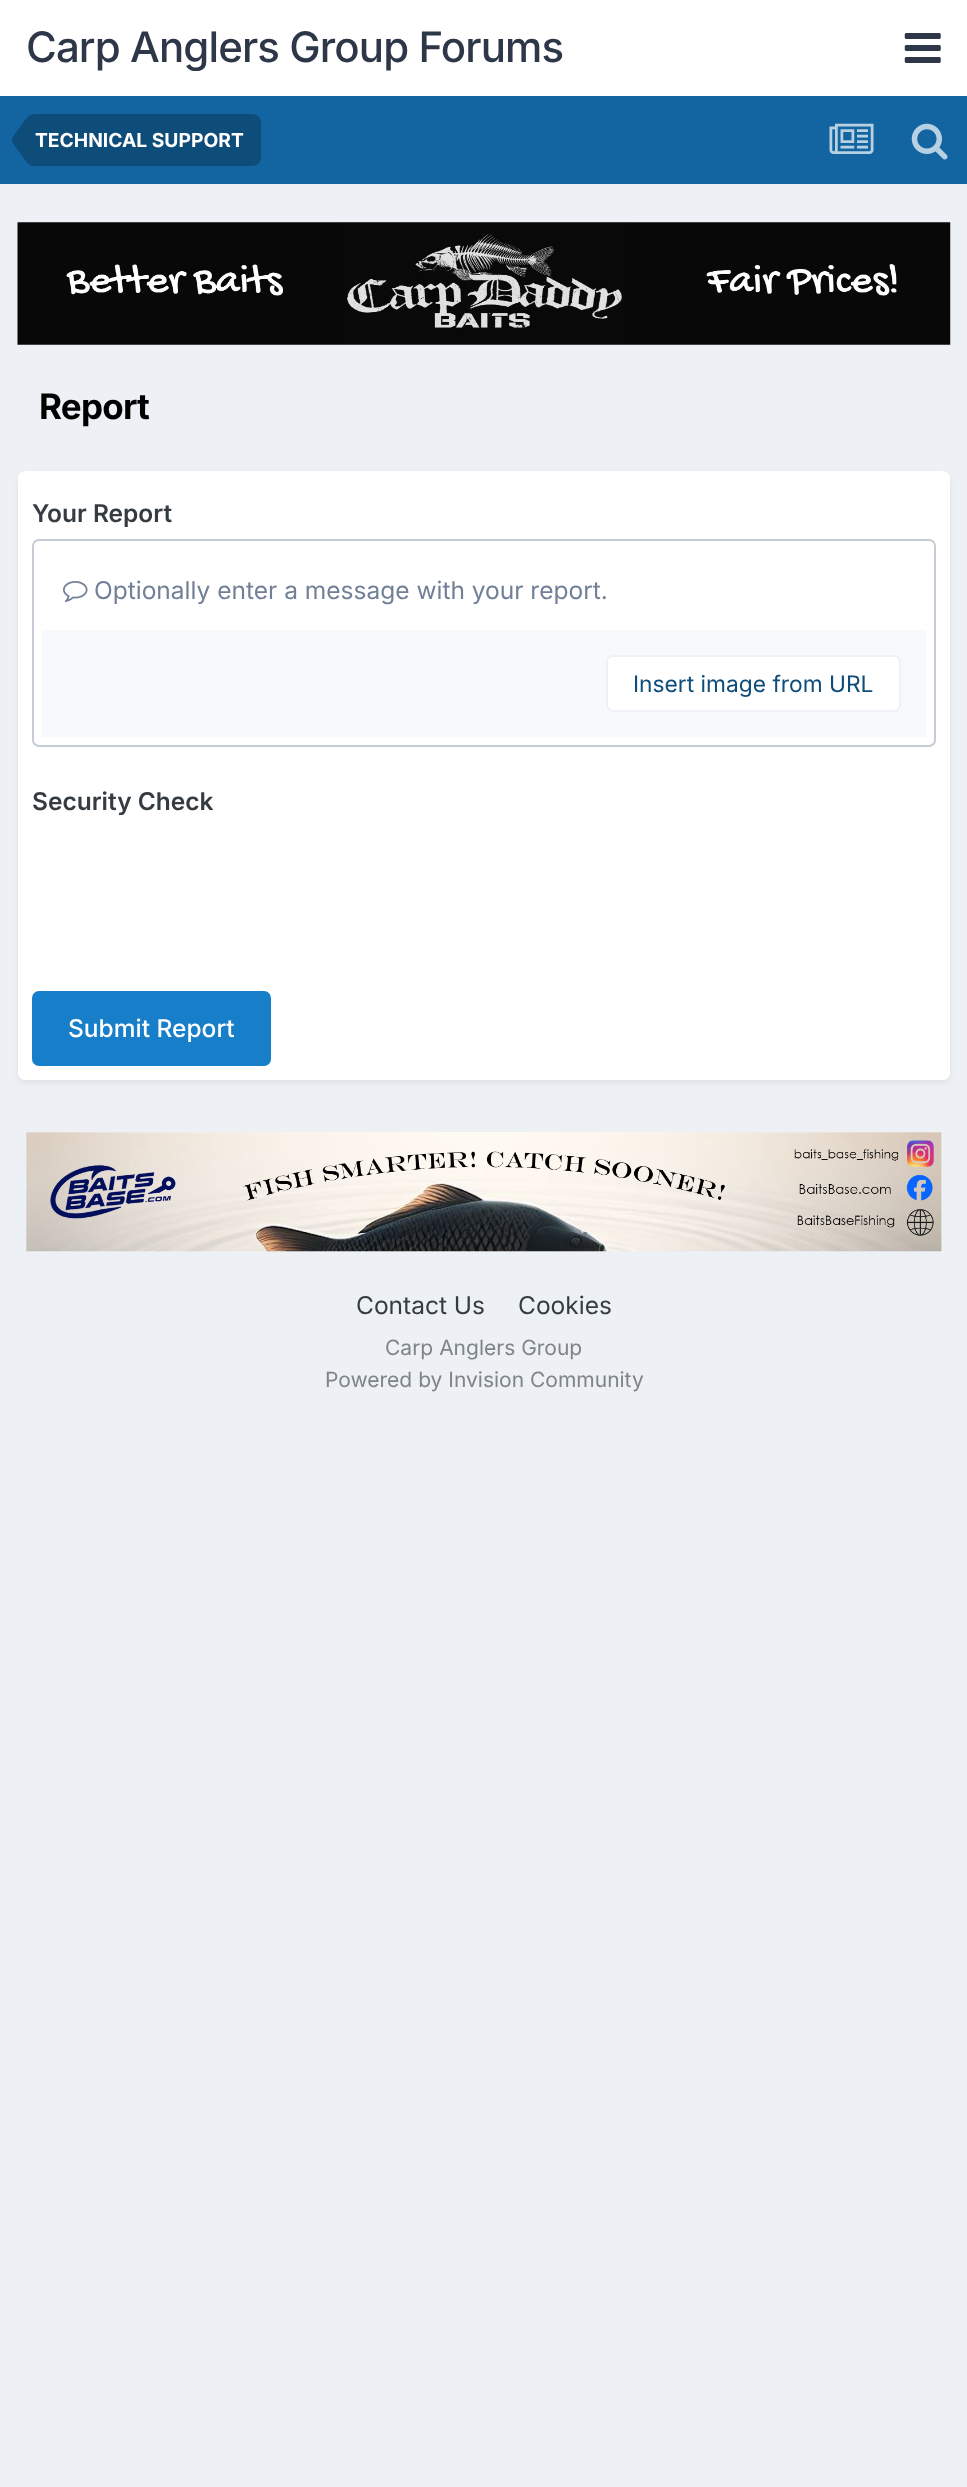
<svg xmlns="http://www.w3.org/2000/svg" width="967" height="2487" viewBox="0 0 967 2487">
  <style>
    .t1 { font: 500 42px Inter; letter-spacing: -0.9px; fill: #2d3748; }
    .t2 { font: bold 19.25px Inter; fill: #fff; }
    .t3 { font: bold 35px Inter; letter-spacing: -0.75px; fill: #000; }
    .t4 { font: 600 24.5px Inter; fill: #353c41; }
    .t5 { font: 24.5px Inter; fill: #718096; }
    .t6 { font: 22.75px Inter; fill: #0e4c79; }
    .t7 { font: 500 24.5px Inter; fill: #fff; }
    .t8 { font: 24.5px Inter; fill: #353c41; }
    .t9 { font: 21px Inter; fill: #7f8489; }
  </style>
  <rect width="100%" height="100%" fill="#edf0f4"/>
  <rect x="0" y="0" width="967" height="96" fill="#fff"/>
  <text x="26" y="62" class="t1">Carp Anglers Group Forums</text>
  <image x="904" y="33" width="37" height="30" href="images/1.png"/>
  <rect x="0" y="96" width="967" height="88" fill="#1265a1"/>
  <path d="M35 114H252C257 114 261 118 261 123V157C261 162 257 166 252 166H35Z" fill="#0e4c79"/>
  <path d="M35 140V166C31 166 27.5 164 25 160L12.5 142.5L12 140ZM35 140H12L12.5 137.5L25 120C27.5 116 31 114 35 114Z" fill="#0e4c79"/>
  <text x="35" y="147" class="t2">TECHNICAL SUPPORT</text>
  <image x="829" y="123" width="45" height="31" href="images/2.png"/>
  <image x="911" y="123" width="37" height="37" href="images/3.png"/>
  <image x="17" y="222" width="934" height="123" href="images/4.png"/>
  <text x="39" y="419" class="t3">Report</text>
  <rect x="19" y="476" width="930" height="606" rx="5" fill="#2d37481a" filter="blur(3.5px)"/>
  <rect x="18" y="471" width="932" height="609" rx="7" fill="#fff"/>
  <text x="32" y="522" class="t4">Your Report</text>
  <rect x="33" y="540" width="902" height="206" rx="6" fill="none" stroke="#c6ccd5" stroke-width="2"/>
  <image x="63" y="581" width="25" height="21" href="images/5.png"/>
  <text x="94" y="599" class="t5">Optionally enter a message with your report.</text>
  <rect x="42" y="630" width="884" height="107" fill="#f7fafc"/>
  <rect x="606" y="655" width="295" height="57" rx="7" fill="#fff"/>
  <rect x="607" y="656" width="293" height="55" rx="6" fill="none" stroke="#0e4c7912" stroke-width="2"/>
  <text x="633" y="692" class="t6">Insert image from URL</text>
  <text x="32" y="810" class="t4">Security Check</text>
  <rect x="32" y="991" width="239" height="75" rx="7" fill="#177ec9"/>
  <text x="68" y="1037" class="t7">Submit Report</text>
  <rect x="26" y="1132" width="916" height="119" fill="#f7fafc"/>
  <image x="26" y="1132" width="916" height="120" href="images/6.png"/>
  <text x="356" y="1314" class="t8">Contact Us</text>
  <text x="518" y="1314" class="t8">Cookies</text>
  <text x="385" y="1355" class="t9">Carp Anglers Group</text>
  <text x="325" y="1387" class="t9">Powered by Invision Community</text>
</svg>
